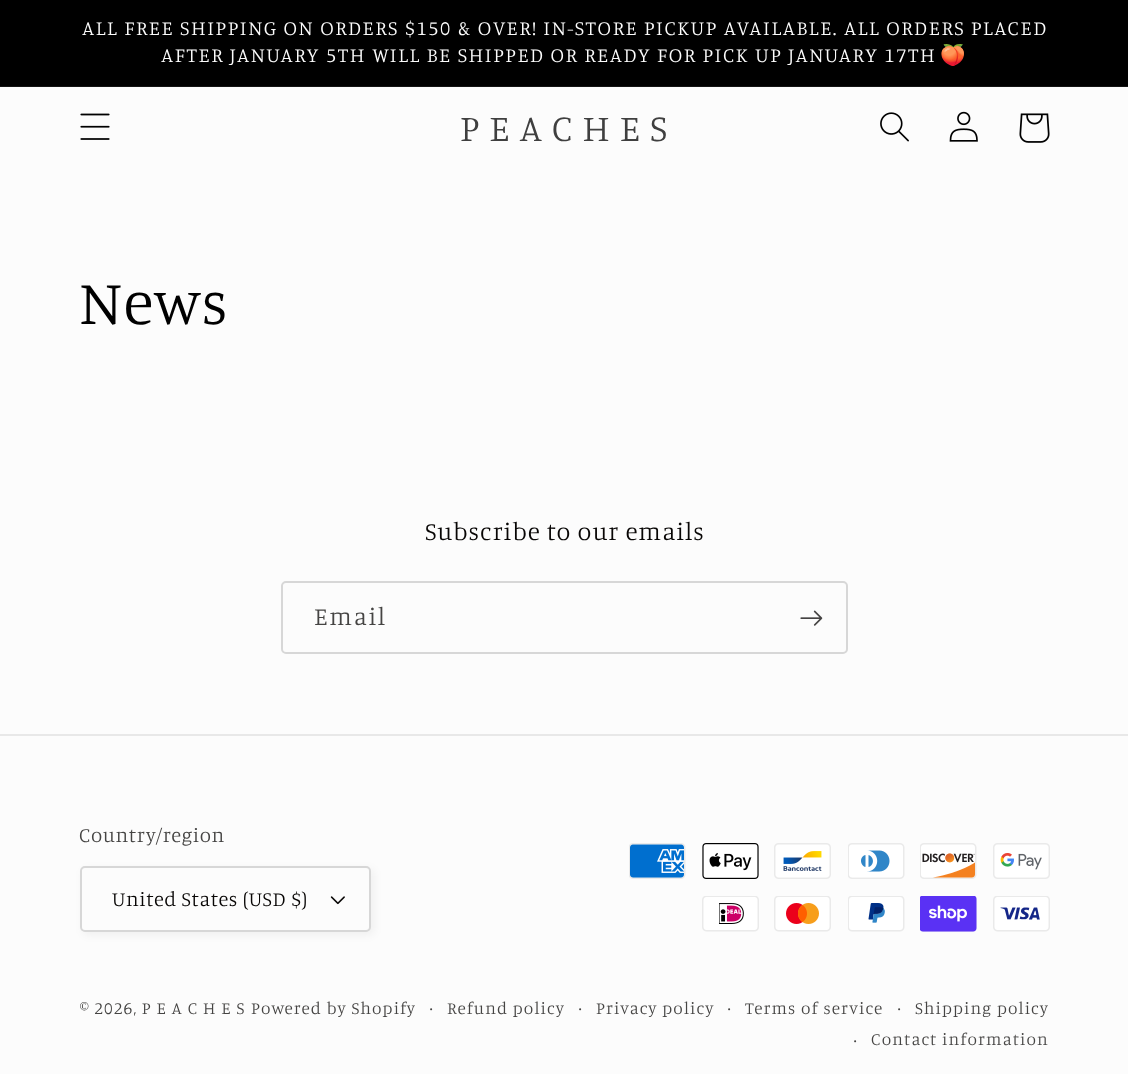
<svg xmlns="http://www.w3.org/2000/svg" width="1128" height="1074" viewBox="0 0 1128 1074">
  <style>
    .t1 { font: 300 20.5px Manuale; letter-spacing: 1.58px; fill: #fcfcfc; }
    .t2 { font: 20.5px Noto Color Emoji; letter-spacing: 1.58px; fill: #fcfcfc; }
    .t3 { font: 300 37.75px Manuale; letter-spacing: 0.95px; fill: #3f3f3f; }
    .t4 { font: 300 63px Manuale; letter-spacing: 0.95px; fill: #000; }
    .t5 { font: 300 25.25px Manuale; letter-spacing: 0.95px; fill: #080605; }
    .t6 { font: 300 25.25px Manuale; letter-spacing: 1.58px; fill: #454443; }
    .t7 { font: 300 20.5px Manuale; letter-spacing: 0.6px; fill: #454443; }
    .t8 { font: 300 20.5px Manuale; letter-spacing: 0.6px; fill: #080605; }
    .t9 { font: 300 17.25px Manuale; letter-spacing: 1.1px; fill: #454443; }
    .t10 { font: 300 19px Manuale; letter-spacing: 1.1px; fill: #454443; }
  </style>
  <rect width="100%" height="100%" fill="#fcfcfc"/>
  <rect x="0" y="0" width="1128" height="86" fill="#000"/>
  <rect x="0" y="86" width="1128" height="1" fill="#141414"/>
  <text x="82" y="35" class="t1">ALL FREE SHIPPING ON ORDERS $150 &amp; OVER! IN-STORE PICKUP AVAILABLE. ALL ORDERS PLACED</text>
  <text x="161" y="62" class="t1">AFTER JANUARY 5TH WILL BE SHIPPED OR READY FOR PICK UP JANUARY 17TH</text>
  <text x="940" y="62" class="t2">🍑</text>
  <image x="80" y="113" width="30" height="27" href="images/1.png"/>
  <text x="460" y="141" class="t3">P E A C H E S</text>
  <image x="880" y="112" width="29" height="30" href="images/2.png"/>
  <image x="949" y="111" width="29" height="31" href="images/3.png"/>
  <image x="1019" y="113" width="31" height="30" href="images/4.png"/>
  <text x="79" y="324" class="t4">News</text>
  <text x="425" y="540" class="t5">Subscribe to our emails</text>
  <rect x="282" y="582" width="565" height="71" rx="4" fill="none" stroke="#08060526" stroke-width="2"/>
  <text x="314" y="625" class="t6">Email</text>
  <image x="800" y="610" width="23" height="16" href="images/5.png"/>
  <rect x="0" y="734" width="1128" height="2" fill="#e8e8e8"/>
  <text x="79" y="842" class="t7">Country/region</text>
  <rect x="83" y="869" width="291" height="66" rx="5" fill="#0000000d" filter="blur(4px)"/>
  <rect x="80" y="866" width="291" height="66" rx="5" fill="#fcfcfc"/>
  <image x="330" y="896" width="15" height="9" href="images/6.png"/>
  <rect x="81" y="867" width="289" height="64" rx="4" fill="none" stroke="#08060526" stroke-width="2"/>
  <text x="112" y="906" class="t8">United States (USD $)</text>
  <image x="629" y="843" width="57" height="36" href="images/7.png"/>
  <image x="702" y="843" width="57" height="36" href="images/8.png"/>
  <image x="774" y="843" width="57" height="36" href="images/9.png"/>
  <image x="848" y="843" width="57" height="36" href="images/10.png"/>
  <image x="920" y="843" width="57" height="36" href="images/11.png"/>
  <image x="993" y="843" width="57" height="36" href="images/12.png"/>
  <image x="702" y="896" width="57" height="36" href="images/13.png"/>
  <image x="774" y="896" width="57" height="36" href="images/14.png"/>
  <image x="848" y="896" width="57" height="36" href="images/15.png"/>
  <image x="920" y="896" width="57" height="36" href="images/16.png"/>
  <image x="993" y="896" width="57" height="36" href="images/17.png"/>
  <text x="80" y="1014" class="t9">© 2026, P E A C H E S</text>
  <text x="251" y="1014" class="t9">Powered by Shopify</text>
  <text x="429" y="1014" class="t10">·</text>
  <text x="447" y="1014" class="t9">Refund policy</text>
  <text x="578" y="1014" class="t10">·</text>
  <text x="596" y="1014" class="t9">Privacy policy</text>
  <text x="727" y="1014" class="t10">·</text>
  <text x="745" y="1014" class="t9">Terms of service</text>
  <text x="897" y="1014" class="t10">·</text>
  <text x="915" y="1014" class="t9">Shipping policy</text>
  <text x="853" y="1046" class="t10">·</text>
  <text x="871" y="1045" class="t9">Contact information</text>
</svg>
